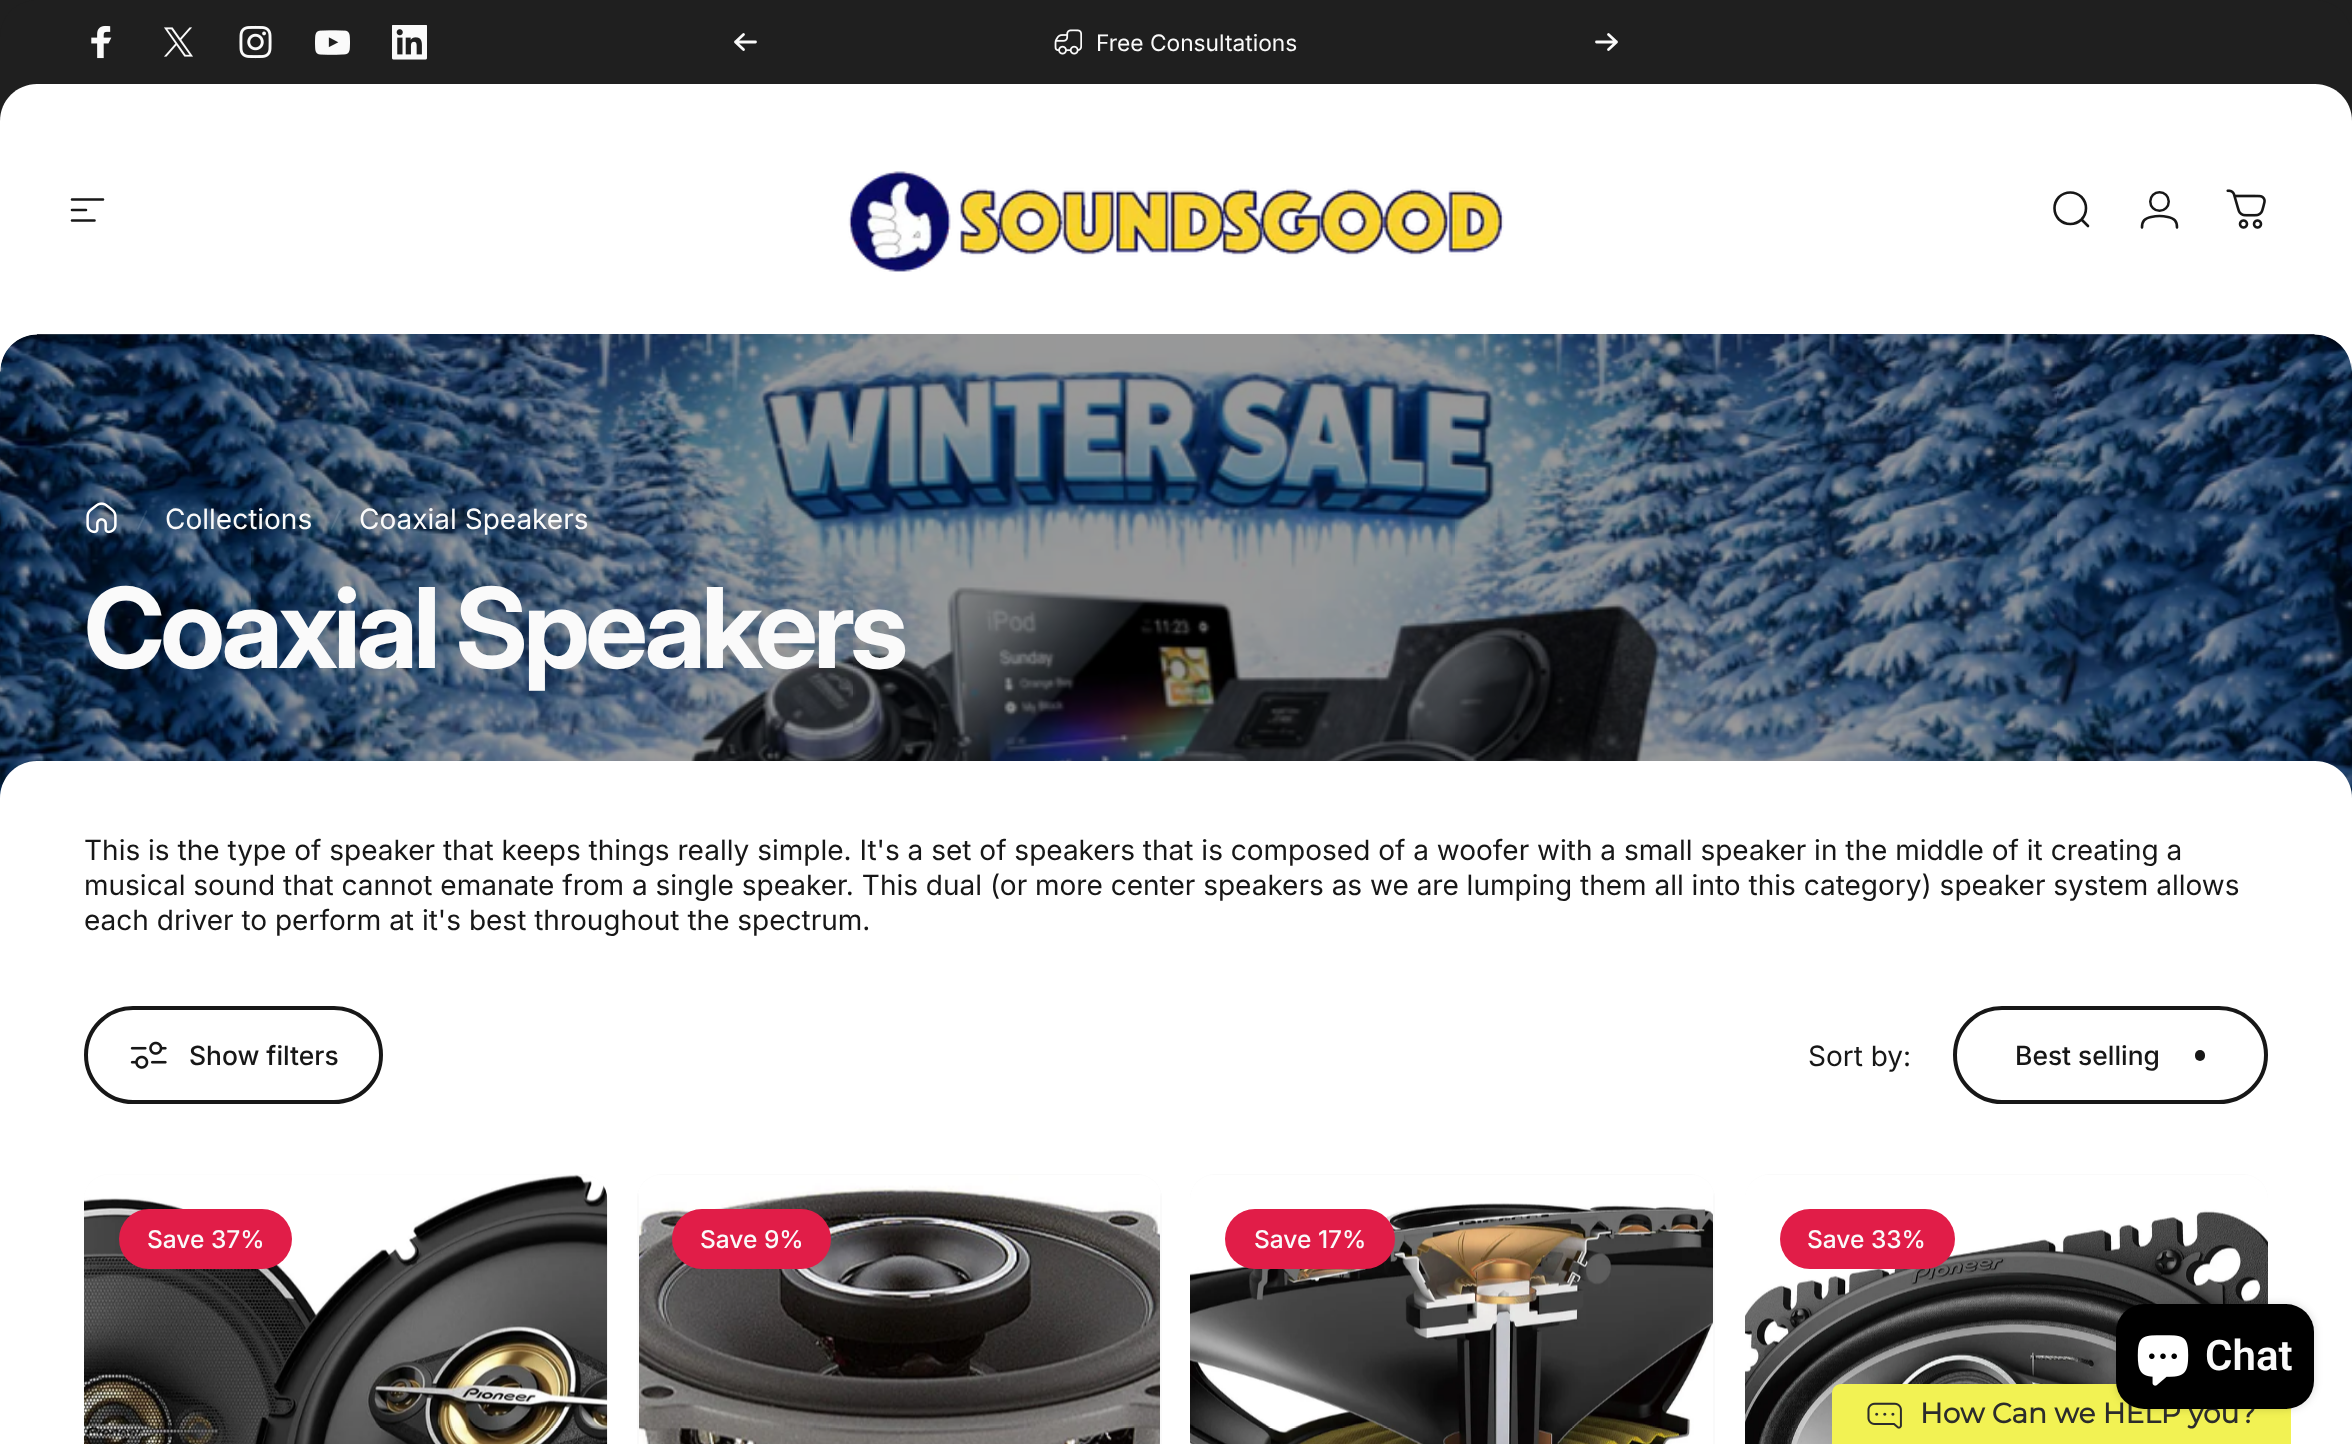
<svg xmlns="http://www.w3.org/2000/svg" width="2352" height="1444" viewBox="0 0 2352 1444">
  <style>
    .t1 { font: 22.75px Inter; fill: #fafafa; }
    .t2 { font: 28px Inter; fill: #fafafa; }
    .t3 { font: bold 111.25px Inter; letter-spacing: -4.5px; fill: #fafafa; }
    .t4 { font: 28px Inter; fill: #171717; }
    .t5 { font: 500 26.5px Inter; fill: #171717; }
    .t6 { font: 500 24.5px 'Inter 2'; fill: #fafafa; }
    .t7 { font: bold 28px Montserrat; fill: #2c2c2c; }
    .t8 { font: 600 42px Roboto; fill: #fafafa; }
  </style>
  <defs>
    <clipPath id="clip1"><path d="M662 1174H1137C1151 1174 1162 1185 1162 1199V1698H637V1199C637 1185 648 1174 662 1174Z"/></clipPath>
    <clipPath id="clip2"><path d="M1215 1174H1690C1704 1174 1715 1185 1715 1199V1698H1190V1199C1190 1185 1201 1174 1215 1174Z"/></clipPath>
  </defs>
  <rect width="100%" height="100%" fill="#fff"/>
  <rect x="0" y="0" width="2352" height="37" fill="#1f1f1f"/>
  <path d="M37 0H2315C2335.5 0 2352 16.5 2352 37V121H0V37C0 16.5 16.5 0 37 0Z" fill="#1f1f1f"/>
  <image x="91" y="25" width="21" height="34" href="images/1.png"/>
  <image x="164" y="27" width="29" height="30" href="images/2.png"/>
  <image x="239" y="25" width="33" height="34" href="images/3.png"/>
  <image x="315" y="30" width="35" height="25" href="images/4.png"/>
  <image x="392" y="25" width="35" height="35" href="images/5.png"/>
  <path d="M743.5 34.5L735.5 42M735.5 42L743.5 49.5M735.5 42H755.5" fill="none" stroke="#fafafa" stroke-width="2.8" stroke-linecap="round" stroke-linejoin="round"/>
  <image x="1054" y="29" width="28" height="26" href="images/6.png"/>
  <text x="1096" y="51" class="t1">Free Consultations</text>
  <path d="M1596.5 42H1616.5M1616.5 42L1608.5 34.5M1616.5 42L1608.5 49.5" fill="none" stroke="#fafafa" stroke-width="2.8" stroke-linecap="round" stroke-linejoin="round"/>
  <path d="M37 84H2315C2335.5 84 2352 100.5 2352 121V334H0V121C0 100.5 16.5 84 37 84Z" fill="#fff"/>
  <path d="M72 199.5H103M72 210H86M72 220.5H94.5" fill="none" stroke="#171717" stroke-width="2.6" stroke-linecap="round"/>
  <image x="848" y="171" width="656" height="101" href="images/7.png"/>
  <path d="M2088 226L2081.5 219.5M2081.5 219.5C2087.5 213 2087.5 203.5 2081.5 197C2075 191 2065.5 191 2059 197C2053 203.5 2053 213 2059 219.5C2065.5 225.5 2075 225.5 2081.5 219.5Z" fill="none" stroke="#171717" stroke-width="2.6" stroke-linecap="round"/>
  <circle cx="2159.5" cy="201.5" r="9.25" fill="none" stroke="#171717" stroke-width="2.5"/>
  <path d="M2159.5 216C2163.5 216 2172.5 217 2175 220.5C2177 222.5 2177 225 2177 227.5M2159.5 216C2155.5 216 2146.5 217 2144 220.5C2142 222.5 2142 225 2142 227.5" fill="none" stroke="#171717" stroke-width="2.6" stroke-linecap="round"/>
  <image x="2226" y="189" width="40" height="40" href="images/8.png"/>
  <image x="0" y="334" width="2352" height="464" href="images/9.png"/>
  <path d="M37 334H2315C2335.5 334 2352 350.5 2352 371V800H0V371C0 350.5 16.5 334 37 334Z" fill="#00000066"/>
  <path d="M37 334H0V371.5H.5C.5 351 17 334.5 37 334.5Z" fill="#fff" fill-rule="evenodd"/>
  <path d="M2314.5 334H2351.5V371.5C2351.5 351 2335 334.5 2314.5 334.5Z" fill="#fff" fill-rule="evenodd"/>
  <image x="86" y="502" width="31" height="32" href="images/10.png"/>
  <path d="M146 510L147.5 511L138.5 530L137 529Z" fill="#ffffff1a"/>
  <text x="165" y="529" class="t2">Collections</text>
  <path d="M339 510L341 511L332 530L330.5 529Z" fill="#ffffff1a"/>
  <text x="359" y="529" class="t2">Coaxial Speakers</text>
  <text x="84" y="668" class="t3">Coaxial Speakers</text>
  <path d="M37 761H2315C2335.5 761 2352 777.5 2352 798V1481H0V798C0 777.5 16.5 761 37 761Z" fill="#fff"/>
  <text x="84" y="860" class="t4">This is the type of speaker that keeps things really simple. It's a set of speakers that is composed of a woofer with a small speaker in the middle of it creating a</text>
  <text x="84" y="895" class="t4">musical sound that cannot emanate from a single speaker. This dual (or more center speakers as we are lumping them all into this category) speaker system allows</text>
  <text x="84" y="930" class="t4">each driver to perform at it's best throughout the spectrum.</text>
  <rect x="86" y="1008" width="295" height="94" rx="47" fill="none" stroke="#171717" stroke-width="4"/>
  <image x="130" y="1041" width="37" height="28" href="images/11.png"/>
  <text x="189" y="1065" class="t5">Show filters</text>
  <text x="1808" y="1066" class="t4">Sort by:</text>
  <rect x="1955" y="1008" width="311" height="94" rx="47" fill="none" stroke="#171717" stroke-width="4"/>
  <text x="2015" y="1065" class="t5">Best selling</text>
  <rect x="2195" y="1050" width="10" height="11" rx="5" fill="#171717"/>
  <rect x="84" y="1174" width="523" height="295" rx="25" fill="#fafafa"/>
  <image x="84" y="1174" width="524" height="270" href="images/12.png"/>
  <rect x="119" y="1209" width="173" height="60" rx="30" fill="#e11d48"/>
  <text x="147" y="1248" class="t6">Save 37%</text>
  <rect x="637" y="1174" width="525" height="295" rx="25" fill="#fafafa"/>
  <image x="637" y="1175" width="525" height="269" href="images/13.png"/>
  <g clip-path="url(#clip1)">
    <path d="M637 1174H614C628 1174 639 1185 639 1199V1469H637Z" fill="#fafafa"/>
    <path d="M1185 1174H1162V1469H1160V1199C1160 1185 1171 1174 1185 1174Z" fill="#fafafa"/>
  </g>
  <rect x="672" y="1209" width="159" height="60" rx="30" fill="#e11d48"/>
  <text x="700" y="1248" class="t6">Save 9%</text>
  <rect x="1190" y="1174" width="525" height="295" rx="25" fill="#fafafa"/>
  <image x="1190" y="1175" width="525" height="269" href="images/14.png"/>
  <g clip-path="url(#clip2)">
    <path d="M1738 1174H1715V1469H1713V1199C1713 1185 1724 1174 1738 1174Z" fill="#fafafa"/>
  </g>
  <rect x="1225" y="1209" width="170" height="60" rx="30" fill="#e11d48"/>
  <text x="1254" y="1248" class="t6">Save 17%</text>
  <rect x="1745" y="1174" width="523" height="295" rx="25" fill="#fafafa"/>
  <image x="1745" y="1175" width="523" height="269" href="images/15.png"/>
  <rect x="1780" y="1209" width="175" height="60" rx="30" fill="#e11d48"/>
  <text x="1807" y="1248" class="t6">Save 33%</text>
  <path d="M1841 1384H2282C2287 1384 2291 1388 2291 1393V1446H1832V1393C1832 1388 1836 1384 1841 1384Z" fill="#f2f253"/>
  <rect x="2116" y="1304" width="198" height="105" rx="28" fill="#00000026" filter="blur(4.5px)"/>
  <text x="1920" y="1423" class="t7">How Can we HELP you?</text>
  <rect x="2116" y="1304" width="198" height="105" rx="28" fill="#000"/>
  <image x="2137" y="1335" width="52" height="51" href="images/16.png"/>
  <text x="2205" y="1370" class="t8">Chat</text>
  <image x="1867" y="1402" width="35" height="27" href="images/17.png"/>
</svg>
